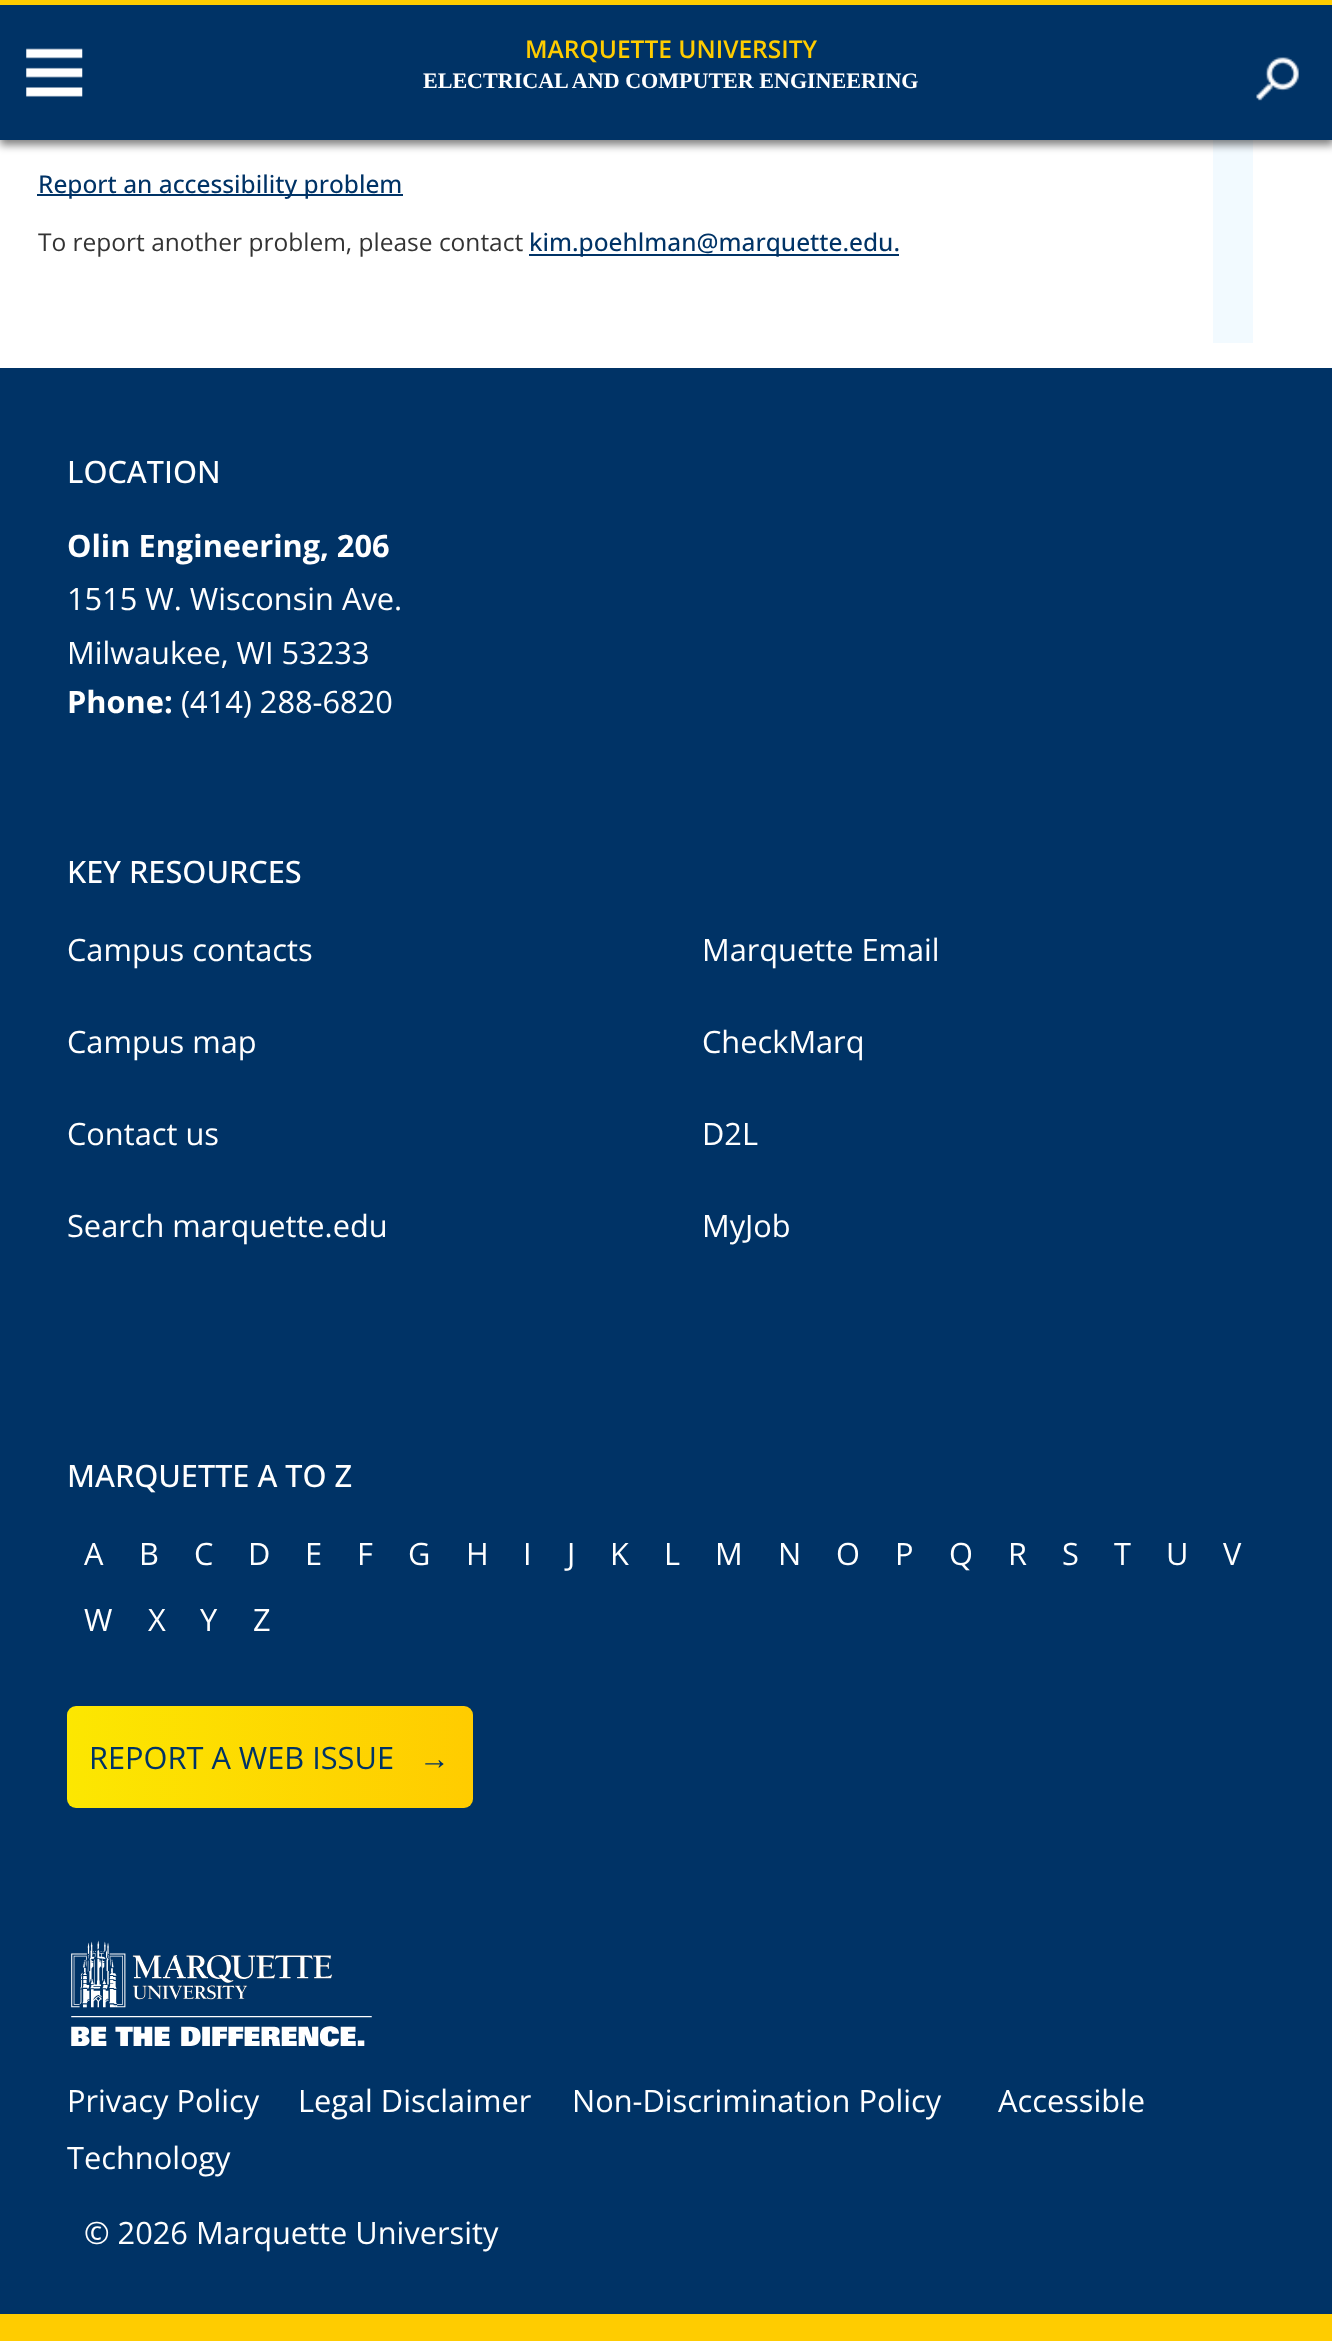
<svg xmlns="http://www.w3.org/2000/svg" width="1332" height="2341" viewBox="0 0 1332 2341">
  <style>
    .t1 { font: 600 24.5px Open Sans; fill: #fc0; }
    .t2 { font: bold 22.05px Liberation Serif; fill: #fff; }
    .t3 { font: 500 24.5px Open Sans; fill: #036; }
    .t4 { font: 24.5px Open Sans; fill: #333; }
    .t5 { font: 500 30.75px Open Sans; fill: #fff; }
    .t6 { font: bold 30.75px Open Sans; fill: #fff; }
    .t7 { font: 30.75px Open Sans; fill: #fff; }
    .t8 { font: 30.75px Open Sans; fill: #036; }
    .t9 { font: 30.75px Liberation Serif; fill: #036; }
  </style>
  <defs>
    <linearGradient id="g1" gradientUnits="userSpaceOnUse" x1="67" y1="1757" x2="473" y2="1757"><stop offset="0" stop-color="#fce701"/><stop offset="1" stop-color="#fc0"/></linearGradient>
  </defs>
  <rect width="100%" height="100%" fill="#fff"/>
  <rect x="1213" y="140" width="40" height="203" fill="#f2faff"/>
  <rect x="0" y="5" width="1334" height="140" fill="#00000080" filter="blur(4.5px)"/>
  <rect x="0" y="5" width="1332" height="135" fill="#036"/>
  <rect x="0" y="0" width="1332" height="5" fill="#fc0"/>
  <image x="26" y="48" width="57" height="49" href="images/1.png"/>
  <text x="525" y="58" class="t1">MARQUETTE UNIVERSITY</text>
  <image x="1256" y="57" width="43" height="44" href="images/2.png"/>
  <text x="423" y="88" class="t2">ELECTRICAL AND COMPUTER ENGINEERING</text>
  <rect x="37" y="194" width="366" height="2" fill="#036"/>
  <text x="38" y="193" class="t3">Report an accessibility problem</text>
  <text x="38" y="251" class="t4">To report another problem, please contact</text>
  <rect x="529" y="254" width="370" height="2" fill="#036"/>
  <text x="529" y="251" class="t3">kim.poehlman@marquette.edu.</text>
  <rect x="0" y="368" width="1332" height="1946" fill="#036"/>
  <text x="67" y="483" class="t5">LOCATION</text>
  <text x="67" y="557" class="t6">Olin Engineering, 206</text>
  <text x="67" y="610" class="t7">1515 W. Wisconsin Ave.</text>
  <text x="67" y="664" class="t7">Milwaukee, WI 53233</text>
  <text x="67" y="713" class="t6">Phone:</text>
  <text x="181" y="713" class="t7">(414) 288-6820</text>
  <text x="67" y="883" class="t5">KEY RESOURCES</text>
  <text x="67" y="961" class="t7">Campus contacts</text>
  <text x="67" y="1053" class="t7">Campus map</text>
  <text x="67" y="1145" class="t7">Contact us</text>
  <text x="67" y="1237" class="t7">Search marquette.edu</text>
  <text x="702" y="961" class="t7">Marquette Email</text>
  <text x="702" y="1053" class="t7">CheckMarq</text>
  <text x="702" y="1145" class="t7">D2L</text>
  <text x="702" y="1237" class="t7">MyJob</text>
  <text x="67" y="1487" class="t5">MARQUETTE A TO Z</text>
  <text x="84" y="1565" class="t7">A</text>
  <text x="139" y="1565" class="t7">B</text>
  <text x="194" y="1565" class="t7">C</text>
  <text x="248" y="1565" class="t7">D</text>
  <text x="305" y="1565" class="t7">E</text>
  <text x="357" y="1565" class="t7">F</text>
  <text x="408" y="1565" class="t7">G</text>
  <text x="466" y="1565" class="t7">H</text>
  <text x="523" y="1565" class="t7">I</text>
  <text x="567" y="1565" class="t7">J</text>
  <text x="610" y="1565" class="t7">K</text>
  <text x="664" y="1565" class="t7">L</text>
  <text x="715" y="1565" class="t7">M</text>
  <text x="778" y="1565" class="t7">N</text>
  <text x="836" y="1565" class="t7">O</text>
  <text x="895" y="1565" class="t7">P</text>
  <text x="949" y="1565" class="t7">Q</text>
  <text x="1008" y="1565" class="t7">R</text>
  <text x="1062" y="1565" class="t7">S</text>
  <text x="1114" y="1565" class="t7">T</text>
  <text x="1166" y="1565" class="t7">U</text>
  <text x="1223" y="1565" class="t7">V</text>
  <text x="84" y="1631" class="t7">W</text>
  <text x="148" y="1631" class="t7">X</text>
  <text x="200" y="1631" class="t7">Y</text>
  <text x="253" y="1631" class="t7">Z</text>
  <rect x="67" y="1706" width="406" height="102" rx="9" fill="url(#g1)"/>
  <text x="89" y="1769" class="t8">REPORT A WEB ISSUE</text>
  <text x="419" y="1769" class="t9">→</text>
  <rect x="0" y="2314" width="1332" height="27" fill="#fc0"/>
  <image x="71" y="1940" width="301" height="107" href="images/3.png"/>
  <text x="67" y="2112" class="t7">Privacy Policy</text>
  <text x="298" y="2112" class="t7">Legal Disclaimer</text>
  <text x="572" y="2112" class="t7">Non-Discrimination Policy</text>
  <text x="998" y="2112" class="t7">Accessible</text>
  <text x="67" y="2169" class="t7">Technology</text>
  <text x="84" y="2244" class="t7">© 2026 Marquette University</text>
</svg>
